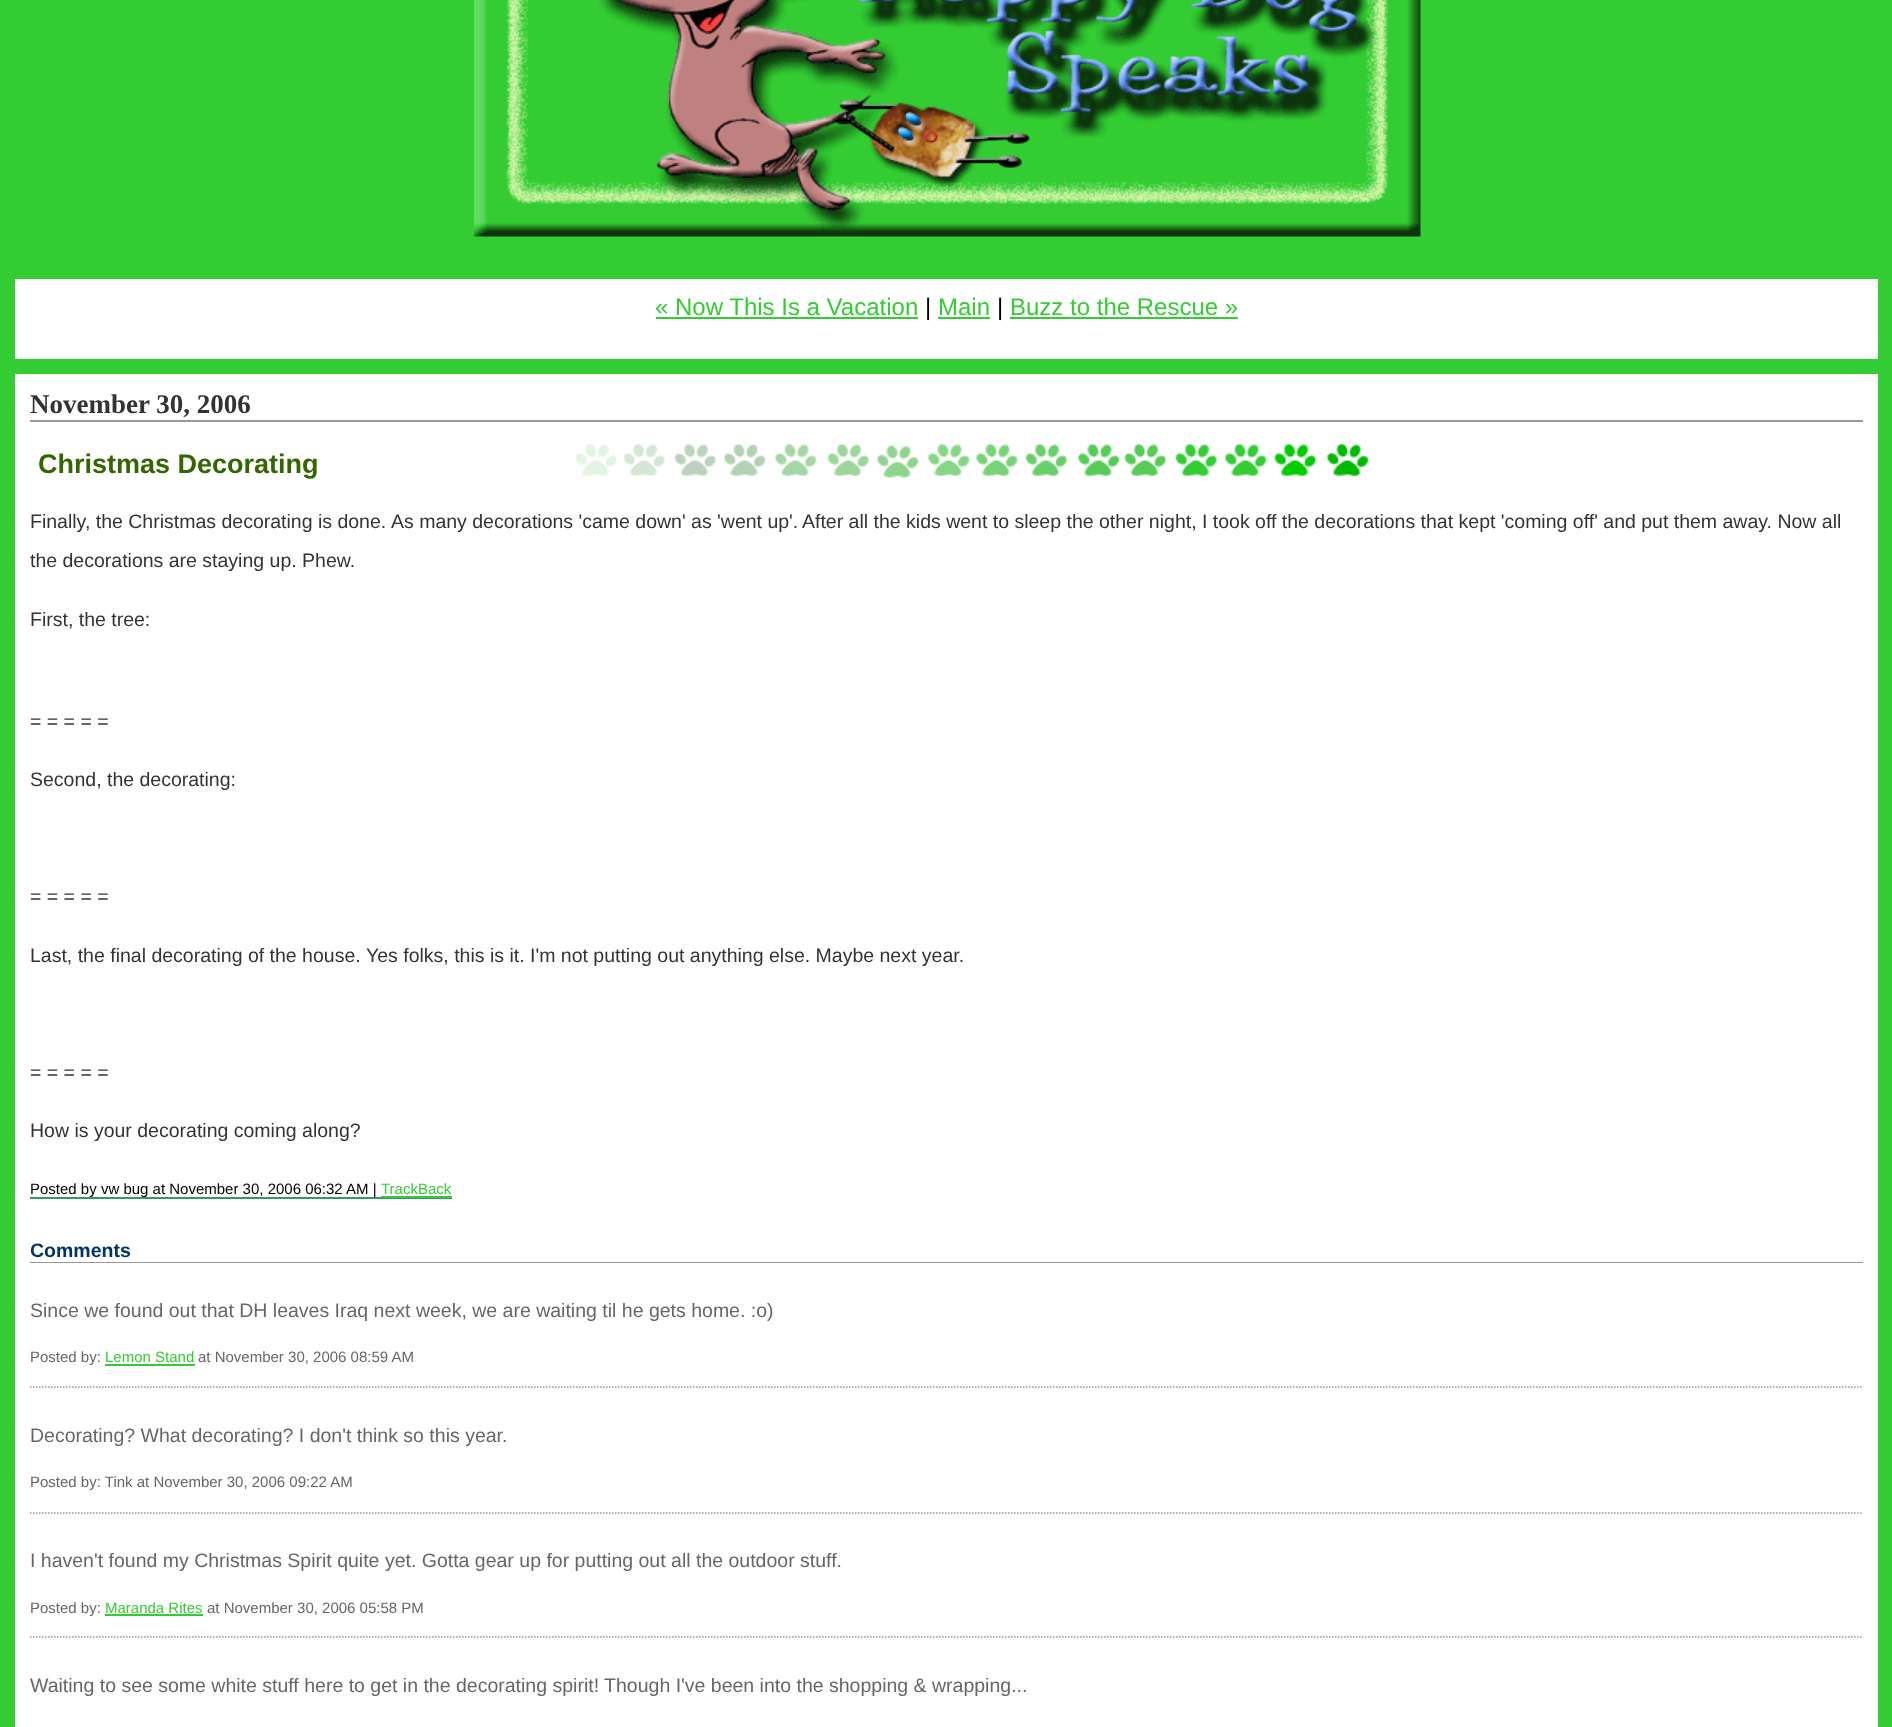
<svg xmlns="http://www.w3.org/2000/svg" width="1892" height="1727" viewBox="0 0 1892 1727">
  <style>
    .t1 { font: 24px Liberation Sans; fill: #3c3; }
    .t2 { font: 24px Liberation Sans; fill: #000; }
    .t3 { font: bold 27px Liberation Serif; fill: #333; }
    .t4 { font: bold 27px Liberation Sans; fill: #360; }
    .t5 { font: 19.5px Liberation Sans; fill: #333; }
    .t6 { font: 15px Liberation Sans; fill: #000; }
    .t7 { font: 15px Liberation Sans; fill: #3c3; }
    .t8 { font: bold 19.5px Liberation Sans; fill: #036; }
    .t9 { font: 19.5px Liberation Sans; fill: #666; }
    .t10 { font: 15px Liberation Sans; fill: #666; }
  </style>
  <rect width="100%" height="100%" fill="#3c3"/>
  <image x="474" y="0" width="947" height="237" href="images/1.png"/>
  <rect x="15" y="279" width="1863" height="80" fill="#fff"/>
  <text x="655" y="315" class="t1">« Now This Is a Vacation</text>
  <rect x="656" y="317" width="262" height="2" fill="#3c3"/>
  <text x="925" y="315" class="t2">|</text>
  <text x="938" y="315" class="t1">Main</text>
  <rect x="938" y="317" width="52" height="2" fill="#3c3"/>
  <text x="997" y="315" class="t2">|</text>
  <text x="1010" y="315" class="t1">Buzz to the Rescue »</text>
  <rect x="1010" y="317" width="228" height="2" fill="#3c3"/>
  <rect x="15" y="374" width="1863" height="1353" fill="#fff"/>
  <rect x="30" y="420" width="1833" height="2" fill="#999"/>
  <text x="30" y="413" class="t3">November 30, 2006</text>
  <image x="576" y="444" width="793" height="34" href="images/2.png"/>
  <text x="38" y="473" class="t4">Christmas Decorating</text>
  <text x="30" y="528" class="t5">Finally, the Christmas decorating is done.</text>
  <text x="391" y="528" class="t5">As many decorations 'came down' as 'went up'.</text>
  <text x="802" y="528" class="t5">After all the kids went to sleep the other night, I took off the decorations that kept 'coming off' and put them away. Now all</text>
  <text x="30" y="567" class="t5">the decorations are staying up. Phew.</text>
  <text x="30" y="626" class="t5">First, the tree:</text>
  <text x="30" y="728" class="t5">= = = = =</text>
  <text x="30" y="786" class="t5">Second, the decorating:</text>
  <text x="30" y="903" class="t5">= = = = =</text>
  <text x="30" y="962" class="t5">Last, the final decorating of the house.</text>
  <text x="366" y="962" class="t5">Yes folks, this is it. I'm not putting out anything else. Maybe next year.</text>
  <text x="30" y="1079" class="t5">= = = = =</text>
  <text x="30" y="1137" class="t5">How is your decorating coming along?</text>
  <rect x="30" y="1197" width="351" height="2" fill="#396"/>
  <text x="30" y="1194" class="t6">Posted by vw bug at November 30, 2006 06:32 AM |</text>
  <text x="381" y="1194" class="t7">TrackBack</text>
  <rect x="381" y="1198" width="71" height="1" fill="#396"/>
  <rect x="381" y="1196" width="71" height="2" fill="#3c3"/>
  <rect x="30" y="1262" width="1833" height="1" fill="#999"/>
  <text x="30" y="1257" class="t8">Comments</text>
  <path d="M30 1387H1863" fill="none" stroke="#999" stroke-width="1.5" stroke-dasharray="1.5 1.5"/>
  <text x="30" y="1317" class="t9">Since we found out that DH leaves Iraq next week, we are waiting til he gets home. :o)</text>
  <text x="30" y="1362" class="t10">Posted by:</text>
  <text x="105" y="1362" class="t7">Lemon Stand</text>
  <rect x="105" y="1364" width="90" height="2" fill="#3c3"/>
  <text x="198" y="1362" class="t10">at November 30, 2006 08:59 AM</text>
  <path d="M30 1513H1863" fill="none" stroke="#999" stroke-width="1.5" stroke-dasharray="1.5 1.5"/>
  <text x="30" y="1442" class="t9">Decorating? What decorating? I don't think so this year.</text>
  <text x="30" y="1487" class="t10">Posted by: Tink at November 30, 2006 09:22 AM</text>
  <path d="M30 1637H1863" fill="none" stroke="#999" stroke-width="1.5" stroke-dasharray="1.5 1.5"/>
  <text x="30" y="1567" class="t9">I haven't found my Christmas Spirit quite yet. Gotta gear up for putting out all the outdoor stuff.</text>
  <text x="30" y="1613" class="t10">Posted by:</text>
  <text x="105" y="1613" class="t7">Maranda Rites</text>
  <rect x="105" y="1614" width="98" height="2" fill="#3c3"/>
  <text x="207" y="1613" class="t10">at November 30, 2006 05:58 PM</text>
  <text x="30" y="1692" class="t9">Waiting to see some white stuff here to get in the decorating spirit! Though I've been into the shopping &amp; wrapping...</text>
</svg>
